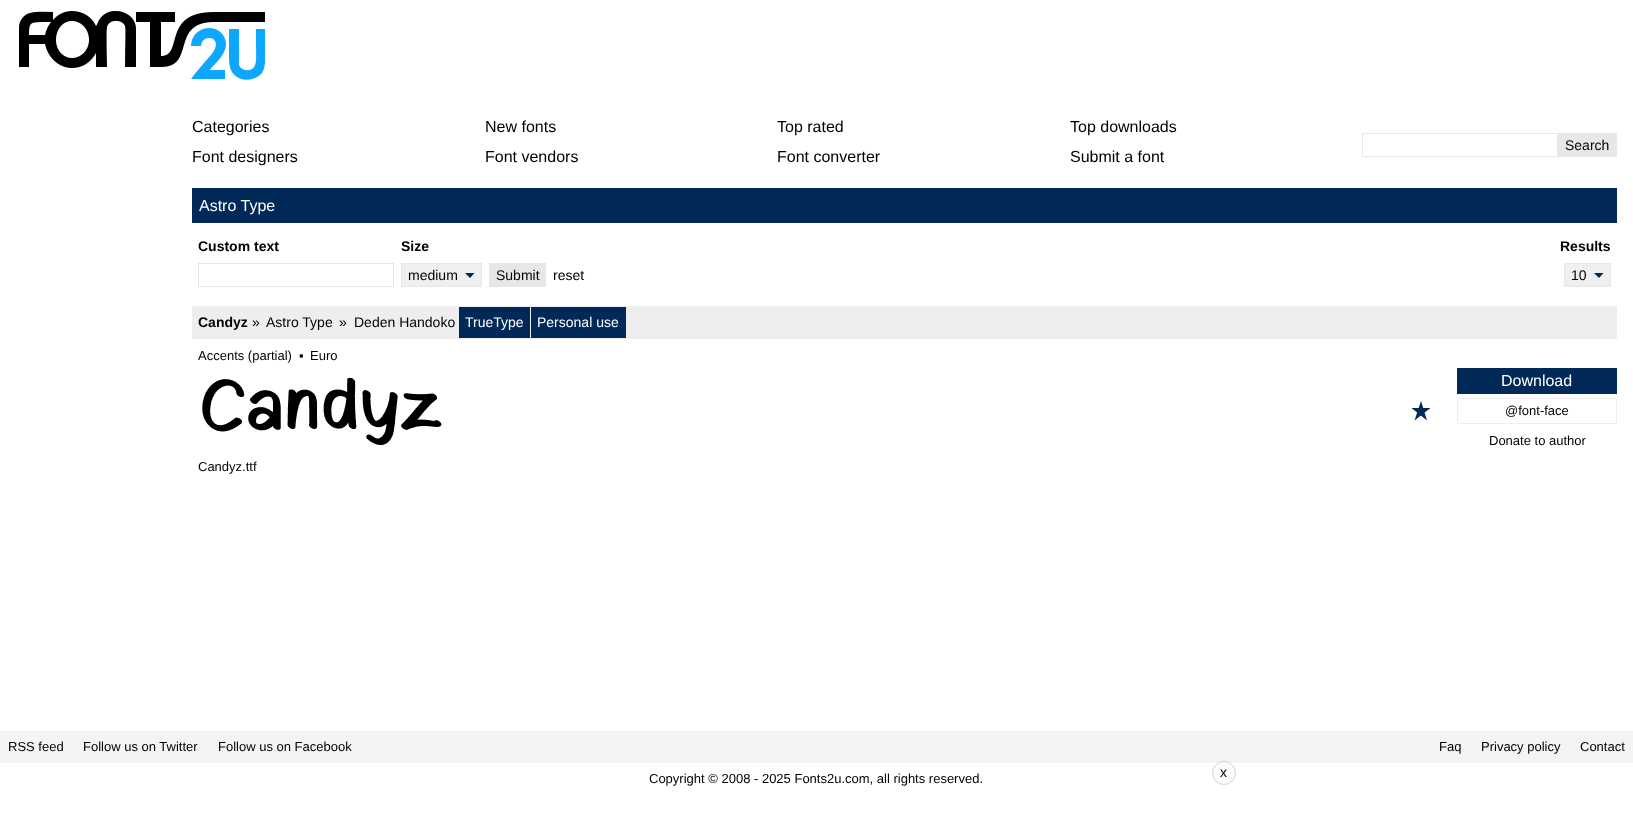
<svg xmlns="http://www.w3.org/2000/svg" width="1633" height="818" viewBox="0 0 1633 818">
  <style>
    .t1 { font: 16px Liberation Sans; fill: #000; }
    .t2 { font: 14px Liberation Sans; fill: #000; }
    .t3 { font: 16px Liberation Sans; fill: #fff; }
    .t4 { font: bold 14px Liberation Sans; fill: #000; }
    .t5 { font: 14px Liberation Sans; fill: #fff; }
    .t6 { font: 13px Liberation Sans; fill: #000; }
  </style>
  <rect width="100%" height="100%" fill="#fff"/>
  <image x="19" y="11" width="246" height="69" href="images/1.png"/>
  <text x="192" y="132" class="t1">Categories</text>
  <text x="485" y="132" class="t1">New fonts</text>
  <text x="777" y="132" class="t1">Top rated</text>
  <text x="1070" y="132" class="t1">Top downloads</text>
  <text x="192" y="162" class="t1">Font designers</text>
  <text x="485" y="162" class="t1">Font vendors</text>
  <text x="777" y="162" class="t1">Font converter</text>
  <text x="1070" y="162" class="t1">Submit a font</text>
  <rect x="1362.5" y="133.5" width="195" height="23" fill="none" stroke="#e7e7e7"/>
  <rect x="1558" y="133" width="59" height="24" fill="#e7e7e7"/>
  <text x="1565" y="150" class="t2">Search</text>
  <rect x="192" y="188" width="1425" height="35" fill="#002957"/>
  <text x="199" y="211" class="t3">Astro Type</text>
  <text x="198" y="251" class="t4">Custom text</text>
  <rect x="198.5" y="263.5" width="195" height="23" fill="none" stroke="#e7e7e7"/>
  <text x="401" y="251" class="t4">Size</text>
  <rect x="402" y="264" width="79" height="22" fill="#efefef"/>
  <path d="M465 273H474.5L470 278Z" fill="#002957"/>
  <rect x="401.5" y="263.5" width="80" height="23" fill="none" stroke="#e7e7e7"/>
  <text x="408" y="280" class="t2">medium</text>
  <text x="1560" y="251" class="t4">Results</text>
  <rect x="1565" y="264" width="45" height="22" fill="#efefef"/>
  <path d="M1594 273H1603.5L1599 278Z" fill="#002957"/>
  <rect x="1564.5" y="263.5" width="46" height="23" fill="none" stroke="#e7e7e7"/>
  <text x="1571" y="280" class="t2">10</text>
  <rect x="489" y="263" width="57" height="24" fill="#e7e7e7"/>
  <text x="496" y="280" class="t2">Submit</text>
  <text x="553" y="280" class="t2">reset</text>
  <rect x="192" y="306" width="1425" height="33" fill="#eee"/>
  <text x="198" y="327" class="t4">Candyz</text>
  <text x="252" y="327" class="t2">»</text>
  <text x="266" y="327" class="t2">Astro Type</text>
  <text x="339" y="327" class="t2">»</text>
  <text x="354" y="327" class="t2">Deden Handoko</text>
  <rect x="459" y="307" width="71" height="31" fill="#002957"/>
  <text x="465" y="327" class="t5">TrueType</text>
  <rect x="531" y="307" width="95" height="31" fill="#002957"/>
  <text x="537" y="327" class="t5">Personal use</text>
  <text x="198" y="360" class="t6">Accents (partial)</text>
  <text x="299" y="360" class="t6">▪</text>
  <text x="310" y="360" class="t6">Euro</text>
  <image x="202" y="377" width="240" height="68" href="images/2.png"/>
  <path d="M1421 401L1414.5 420.5L1430.5 408H1411.5L1427 420.5Z" fill="#002957"/>
  <rect x="1457" y="368" width="160" height="26" fill="#002957"/>
  <text x="1501" y="386" class="t3">Download</text>
  <rect x="1457.5" y="398.5" width="159" height="25" fill="none" stroke="#eee"/>
  <text x="1505" y="415" class="t6">@font-face</text>
  <text x="1489" y="445" class="t6">Donate to author</text>
  <text x="198" y="471" class="t6">Candyz.ttf</text>
  <rect x="0" y="731" width="1633" height="32" fill="#f4f4f4"/>
  <circle cx="1224" cy="773" r="11.5" fill="#fcfcfc" stroke="#d3d3d3"/>
  <text x="1220" y="777" class="t2">x</text>
  <text x="8" y="751" class="t6">RSS feed</text>
  <text x="83" y="751" class="t6">Follow us on Twitter</text>
  <text x="218" y="751" class="t6">Follow us on Facebook</text>
  <text x="1439" y="751" class="t6">Faq</text>
  <text x="1481" y="751" class="t6">Privacy policy</text>
  <text x="1580" y="751" class="t6">Contact</text>
  <text x="649" y="783" class="t6">Copyright © 2008 - 2025 Fonts2u.com, all rights reserved.</text>
</svg>
